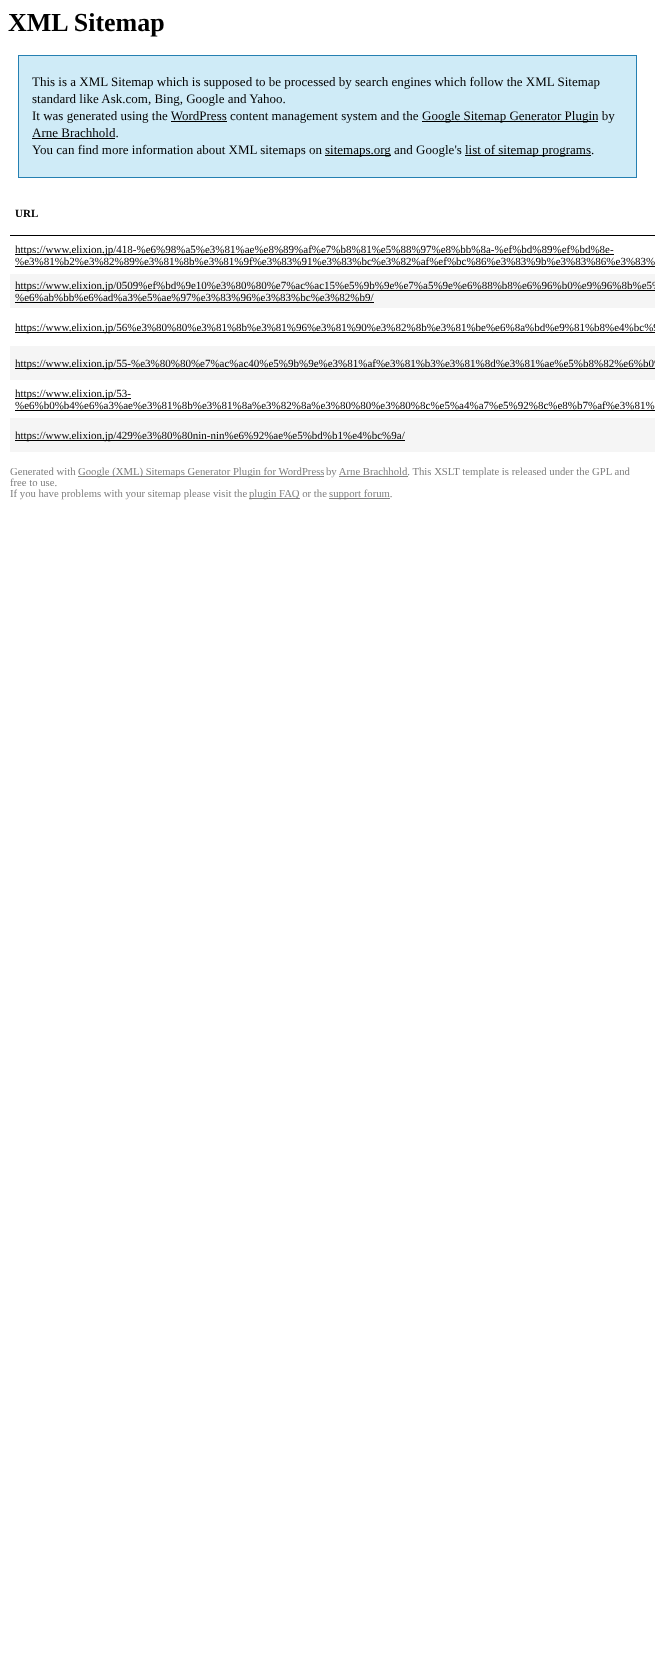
<svg xmlns="http://www.w3.org/2000/svg" width="655" height="1663" viewBox="0 0 655 1663">
  <style>
    .t1 { font: bold 26px Liberation Serif; fill: #000; }
    .t2 { font: 13px Liberation Serif; fill: #000; }
    .t3 { font: bold 11px Liberation Serif; fill: #000; }
    .t4 { font: 11px Liberation Serif; fill: #000; }
    .t5 { font: 10.7px Liberation Serif; fill: #808080; }
  </style>
  <rect width="100%" height="100%" fill="#fff"/>
  <text x="8" y="31" class="t1">XML Sitemap</text>
  <rect x="18.5" y="55.5" width="618" height="122" fill="#cfebf7" stroke="#2580b2"/>
  <text x="32" y="86" class="t2">This is a XML Sitemap which is supposed to be processed by search engines which follow the XML Sitemap</text>
  <text x="32" y="103" class="t2">standard like Ask.com, Bing, Google and Yahoo.</text>
  <text x="32" y="120" class="t2">It was generated using the WordPress content management system and the</text>
  <rect x="422" y="121" width="176" height="1" fill="#000"/>
  <text x="422" y="120" class="t2">Google Sitemap Generator Plugin by</text>
  <rect x="171" y="121" width="56" height="1" fill="#000"/>
  <text x="32" y="137" class="t2">Arne Brachhold.</text>
  <rect x="32" y="138" width="83" height="1" fill="#000"/>
  <text x="32" y="154" class="t2">You can find more information about XML sitemaps on</text>
  <rect x="325" y="155" width="66" height="1" fill="#000"/>
  <text x="325" y="154" class="t2">sitemaps.org and Google's</text>
  <rect x="465" y="155" width="126" height="1" fill="#000"/>
  <text x="465" y="154" class="t2">list of sitemap programs.</text>
  <rect x="10" y="235" width="645" height="1" fill="#000"/>
  <text x="15" y="217" class="t3">URL</text>
  <rect x="15" y="254" width="599" height="1" fill="#000"/>
  <text x="15" y="253" class="t4">https://www.elixion.jp/418-%e6%98%a5%e3%81%ae%e8%89%af%e7%b8%81%e5%88%97%e8%bb%8a-%ef%bd%89%ef%bd%8e-</text>
  <text x="15" y="265" class="t4">%e3%81%b2%e3%82%89%e3%81%8b%e3%81%9f%e3%83%91%e3%83%bc%e3%82%af%ef%bc%86%e3%83%9b%e3%83%86%e3%83%</text>
  <rect x="15" y="266" width="640" height="1" fill="#000"/>
  <rect x="10" y="274" width="645" height="34" fill="#f5f5f5"/>
  <rect x="15" y="290" width="640" height="1" fill="#000"/>
  <text x="15" y="289" class="t4">https://www.elixion.jp/0509%ef%bd%9e10%e3%80%80%e7%ac%ac15%e5%9b%9e%e7%a5%9e%e6%88%b8%e6%96%b0%e9%96%8b%e5%</text>
  <text x="15" y="301" class="t4">%e6%ab%bb%e6%ad%a3%e5%ae%97%e3%83%96%e3%83%bc%e3%82%b9/</text>
  <rect x="15" y="302" width="359" height="1" fill="#000"/>
  <rect x="15" y="332" width="640" height="1" fill="#000"/>
  <text x="15" y="331" class="t4">https://www.elixion.jp/56%e3%80%80%e3%81%8b%e3%81%96%e3%81%90%e3%82%8b%e3%81%be%e6%8a%bd%e9%81%b8%e4%bc%9</text>
  <rect x="10" y="346" width="645" height="34" fill="#f5f5f5"/>
  <rect x="15" y="368" width="640" height="1" fill="#000"/>
  <text x="15" y="367" class="t4">https://www.elixion.jp/55-%e3%80%80%e7%ac%ac40%e5%9b%9e%e3%81%af%e3%81%b3%e3%81%8d%e3%81%ae%e5%b8%82%e6%b0%</text>
  <rect x="15" y="398" width="116" height="1" fill="#000"/>
  <text x="15" y="397" class="t4">https://www.elixion.jp/53-</text>
  <text x="15" y="409" class="t4">%e6%b0%b4%e6%a3%ae%e3%81%8b%e3%81%8a%e3%82%8a%e3%80%80%e3%80%8c%e5%a4%a7%e5%92%8c%e8%b7%af%e3%81%</text>
  <rect x="15" y="410" width="640" height="1" fill="#000"/>
  <rect x="10" y="418" width="645" height="34" fill="#f5f5f5"/>
  <rect x="15" y="440" width="390" height="1" fill="#000"/>
  <text x="15" y="439" class="t4">https://www.elixion.jp/429%e3%80%80nin-nin%e6%92%ae%e5%bd%b1%e4%bc%9a/</text>
  <text x="10" y="475" class="t5">Generated with</text>
  <rect x="78" y="476" width="246" height="1" fill="#808080"/>
  <text x="78" y="475" class="t5">Google (XML) Sitemaps Generator Plugin for WordPress</text>
  <text x="326" y="475" class="t5">by Arne Brachhold. This XSLT template is released under the GPL and</text>
  <rect x="339" y="476" width="69" height="1" fill="#808080"/>
  <text x="10" y="486" class="t5">free to use.</text>
  <text x="10" y="497" class="t5">If you have problems with your sitemap please visit the</text>
  <rect x="249" y="498" width="51" height="1" fill="#808080"/>
  <text x="249" y="497" class="t5">plugin FAQ or the</text>
  <rect x="329" y="498" width="61" height="1" fill="#808080"/>
  <text x="329" y="497" class="t5">support forum.</text>
</svg>
